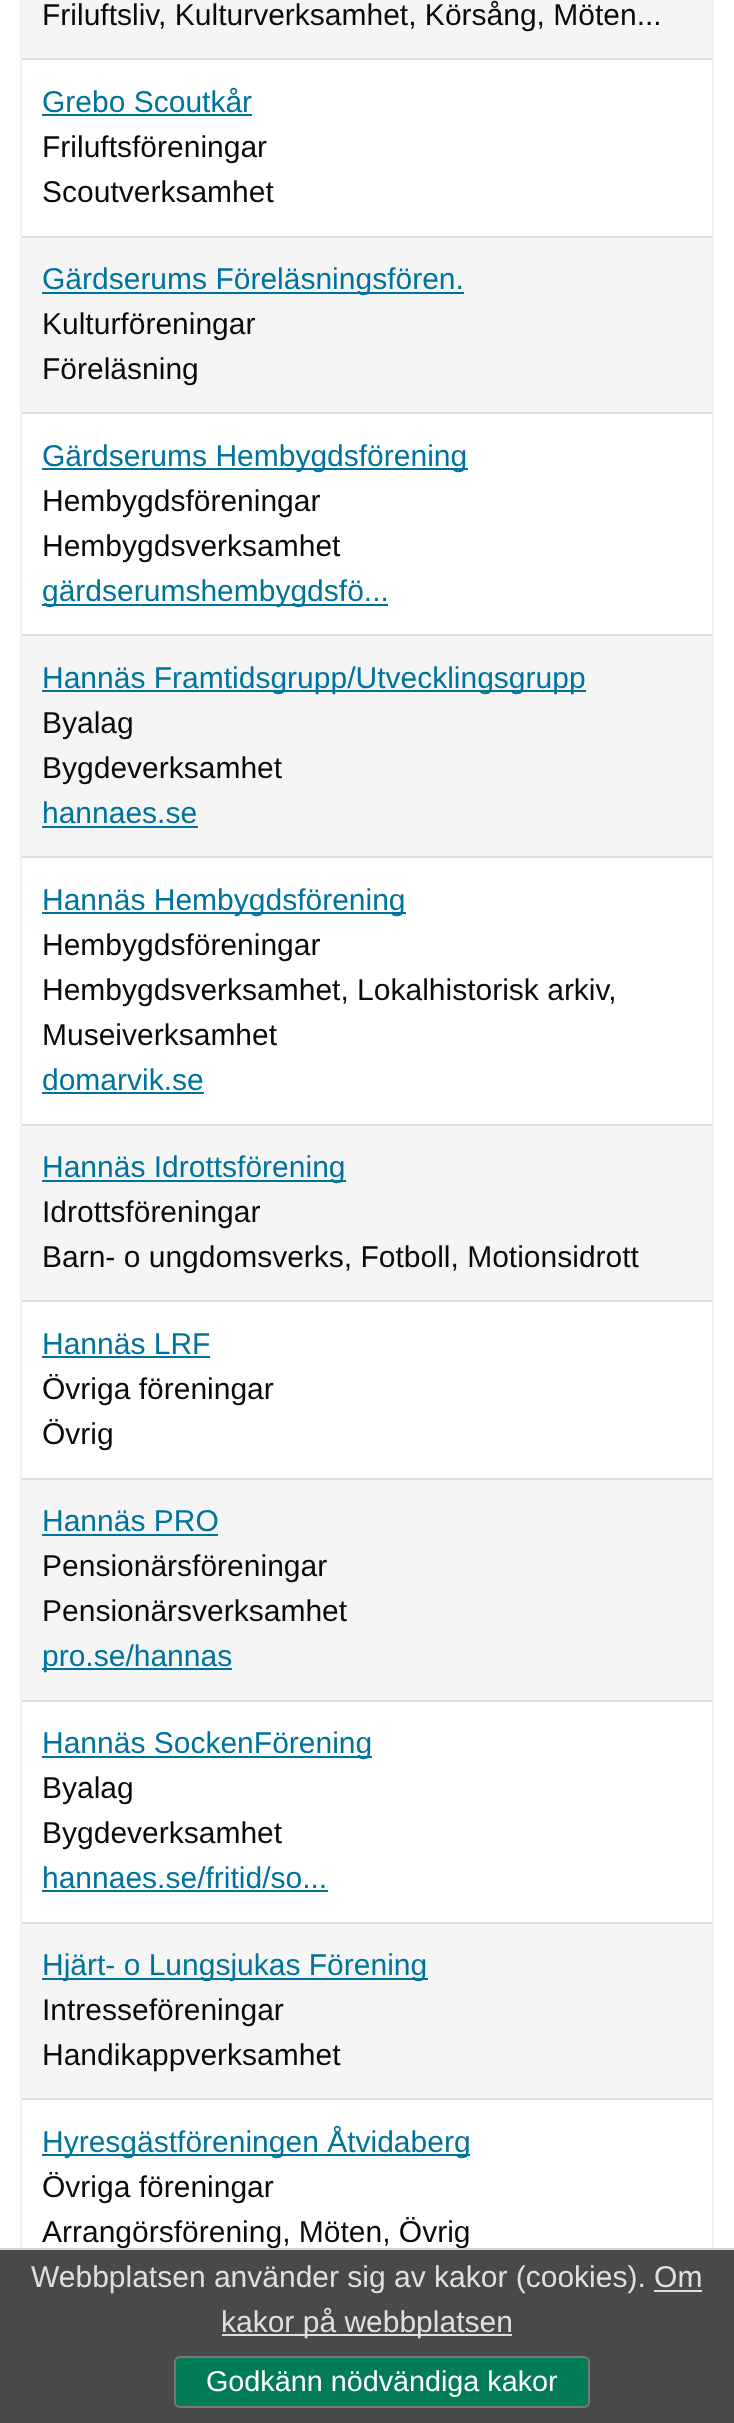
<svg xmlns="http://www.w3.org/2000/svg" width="734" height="2423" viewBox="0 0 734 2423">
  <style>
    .t1 { font: 30px Liberation Sans; fill: #0a0a0a; }
    .t2 { font: 30px Liberation Sans; fill: #00739c; }
    .t3 { font: 30px Liberation Sans; fill: #dfdfdf; }
    .t4 { font: 28.75px Liberation Sans; fill: #fefefe; }
  </style>
  <rect width="100%" height="100%" fill="#fff"/>
  <rect x="712" y="0" width="2" height="2248" fill="#f1f1f1"/>
  <rect x="20" y="0" width="2" height="2248" fill="#f1f1f1"/>
  <rect x="22" y="0" width="690" height="58" fill="#f5f5f5"/>
  <rect x="22" y="58" width="690" height="2" fill="#dcdcdc"/>
  <text x="42" y="25" class="t1">Friluftsliv, Kulturverksamhet, Körsång, Möten...</text>
  <rect x="22" y="236" width="690" height="2" fill="#dcdcdc"/>
  <text x="42" y="112" class="t2">Grebo Scoutkår</text>
  <rect x="42" y="114" width="210" height="2" fill="#00739c"/>
  <text x="42" y="157" class="t1">Friluftsföreningar</text>
  <text x="42" y="202" class="t1">Scoutverksamhet</text>
  <rect x="22" y="238" width="690" height="174" fill="#f5f5f5"/>
  <rect x="22" y="412" width="690" height="2" fill="#dcdcdc"/>
  <rect x="42" y="292" width="422" height="2" fill="#00739c"/>
  <text x="42" y="289" class="t2">Gärdserums Föreläsningsfören.</text>
  <text x="42" y="334" class="t1">Kulturföreningar</text>
  <text x="42" y="379" class="t1">Föreläsning</text>
  <rect x="22" y="634" width="690" height="2" fill="#dcdcdc"/>
  <rect x="42" y="468" width="426" height="2" fill="#00739c"/>
  <text x="42" y="466" class="t2">Gärdserums Hembygdsförening</text>
  <text x="42" y="511" class="t1">Hembygdsföreningar</text>
  <text x="42" y="556" class="t1">Hembygdsverksamhet</text>
  <rect x="42" y="604" width="346" height="2" fill="#00739c"/>
  <text x="42" y="601" class="t2">gärdserumshembygdsfö...</text>
  <rect x="22" y="636" width="690" height="220" fill="#f5f5f5"/>
  <rect x="22" y="856" width="690" height="2" fill="#dcdcdc"/>
  <rect x="42" y="690" width="544" height="2" fill="#00739c"/>
  <text x="42" y="688" class="t2">Hannäs Framtidsgrupp/Utvecklingsgrupp</text>
  <text x="42" y="733" class="t1">Byalag</text>
  <text x="42" y="778" class="t1">Bygdeverksamhet</text>
  <text x="42" y="823" class="t2">hannaes.se</text>
  <rect x="42" y="826" width="156" height="2" fill="#00739c"/>
  <rect x="22" y="1124" width="690" height="2" fill="#dcdcdc"/>
  <rect x="42" y="912" width="364" height="2" fill="#00739c"/>
  <text x="42" y="910" class="t2">Hannäs Hembygdsförening</text>
  <text x="42" y="955" class="t1">Hembygdsföreningar</text>
  <text x="42" y="1000" class="t1">Hembygdsverksamhet, Lokalhistorisk arkiv,</text>
  <text x="42" y="1045" class="t1">Museiverksamhet</text>
  <text x="42" y="1090" class="t2">domarvik.se</text>
  <rect x="42" y="1092" width="162" height="2" fill="#00739c"/>
  <rect x="22" y="1126" width="690" height="174" fill="#f5f5f5"/>
  <rect x="22" y="1300" width="690" height="2" fill="#dcdcdc"/>
  <rect x="42" y="1180" width="304" height="2" fill="#00739c"/>
  <text x="42" y="1177" class="t2">Hannäs Idrottsförening</text>
  <text x="42" y="1222" class="t1">Idrottsföreningar</text>
  <text x="42" y="1267" class="t1">Barn- o ungdomsverks, Fotboll, Motionsidrott</text>
  <rect x="22" y="1478" width="690" height="2" fill="#dcdcdc"/>
  <text x="42" y="1354" class="t2">Hannäs LRF</text>
  <rect x="42" y="1356" width="168" height="2" fill="#00739c"/>
  <text x="42" y="1399" class="t1">Övriga föreningar</text>
  <text x="42" y="1444" class="t1">Övrig</text>
  <rect x="22" y="1480" width="690" height="220" fill="#f5f5f5"/>
  <rect x="22" y="1700" width="690" height="2" fill="#dcdcdc"/>
  <text x="42" y="1531" class="t2">Hannäs PRO</text>
  <rect x="42" y="1534" width="176" height="2" fill="#00739c"/>
  <text x="42" y="1576" class="t1">Pensionärsföreningar</text>
  <text x="42" y="1621" class="t1">Pensionärsverksamhet</text>
  <rect x="42" y="1668" width="190" height="2" fill="#00739c"/>
  <text x="42" y="1666" class="t2">pro.se/hannas</text>
  <rect x="22" y="1922" width="690" height="2" fill="#dcdcdc"/>
  <rect x="42" y="1756" width="330" height="2" fill="#00739c"/>
  <text x="42" y="1753" class="t2">Hannäs SockenFörening</text>
  <text x="42" y="1798" class="t1">Byalag</text>
  <text x="42" y="1843" class="t1">Bygdeverksamhet</text>
  <text x="42" y="1888" class="t2">hannaes.se/fritid/so...</text>
  <rect x="42" y="1890" width="286" height="2" fill="#00739c"/>
  <rect x="22" y="1924" width="690" height="174" fill="#f5f5f5"/>
  <rect x="22" y="2098" width="690" height="2" fill="#dcdcdc"/>
  <rect x="42" y="1978" width="386" height="2" fill="#00739c"/>
  <text x="42" y="1975" class="t2">Hjärt- o Lungsjukas Förening</text>
  <text x="42" y="2020" class="t1">Intresseföreningar</text>
  <text x="42" y="2065" class="t1">Handikappverksamhet</text>
  <rect x="42" y="2154" width="428" height="2" fill="#00739c"/>
  <text x="42" y="2152" class="t2">Hyresgästföreningen Åtvidaberg</text>
  <text x="42" y="2197" class="t1">Övriga föreningar</text>
  <text x="42" y="2242" class="t1">Arrangörsförening, Möten, Övrig</text>
  <rect x="0" y="2250" width="734" height="173" fill="#494949"/>
  <rect x="0" y="2248" width="734" height="2" fill="#d6d6d6"/>
  <text x="31" y="2287" class="t3">Webbplatsen använder sig av kakor (cookies). Om</text>
  <rect x="222" y="2334" width="290" height="2" fill="#dfdfdf"/>
  <text x="221" y="2332" class="t3">kakor på webbplatsen</text>
  <rect x="654" y="2290" width="48" height="2" fill="#dfdfdf"/>
  <rect x="175" y="2357" width="414" height="50" rx="5" fill="#027c56" stroke="#777" stroke-width="2"/>
  <text x="206" y="2391" class="t4">Godkänn nödvändiga kakor</text>
</svg>
